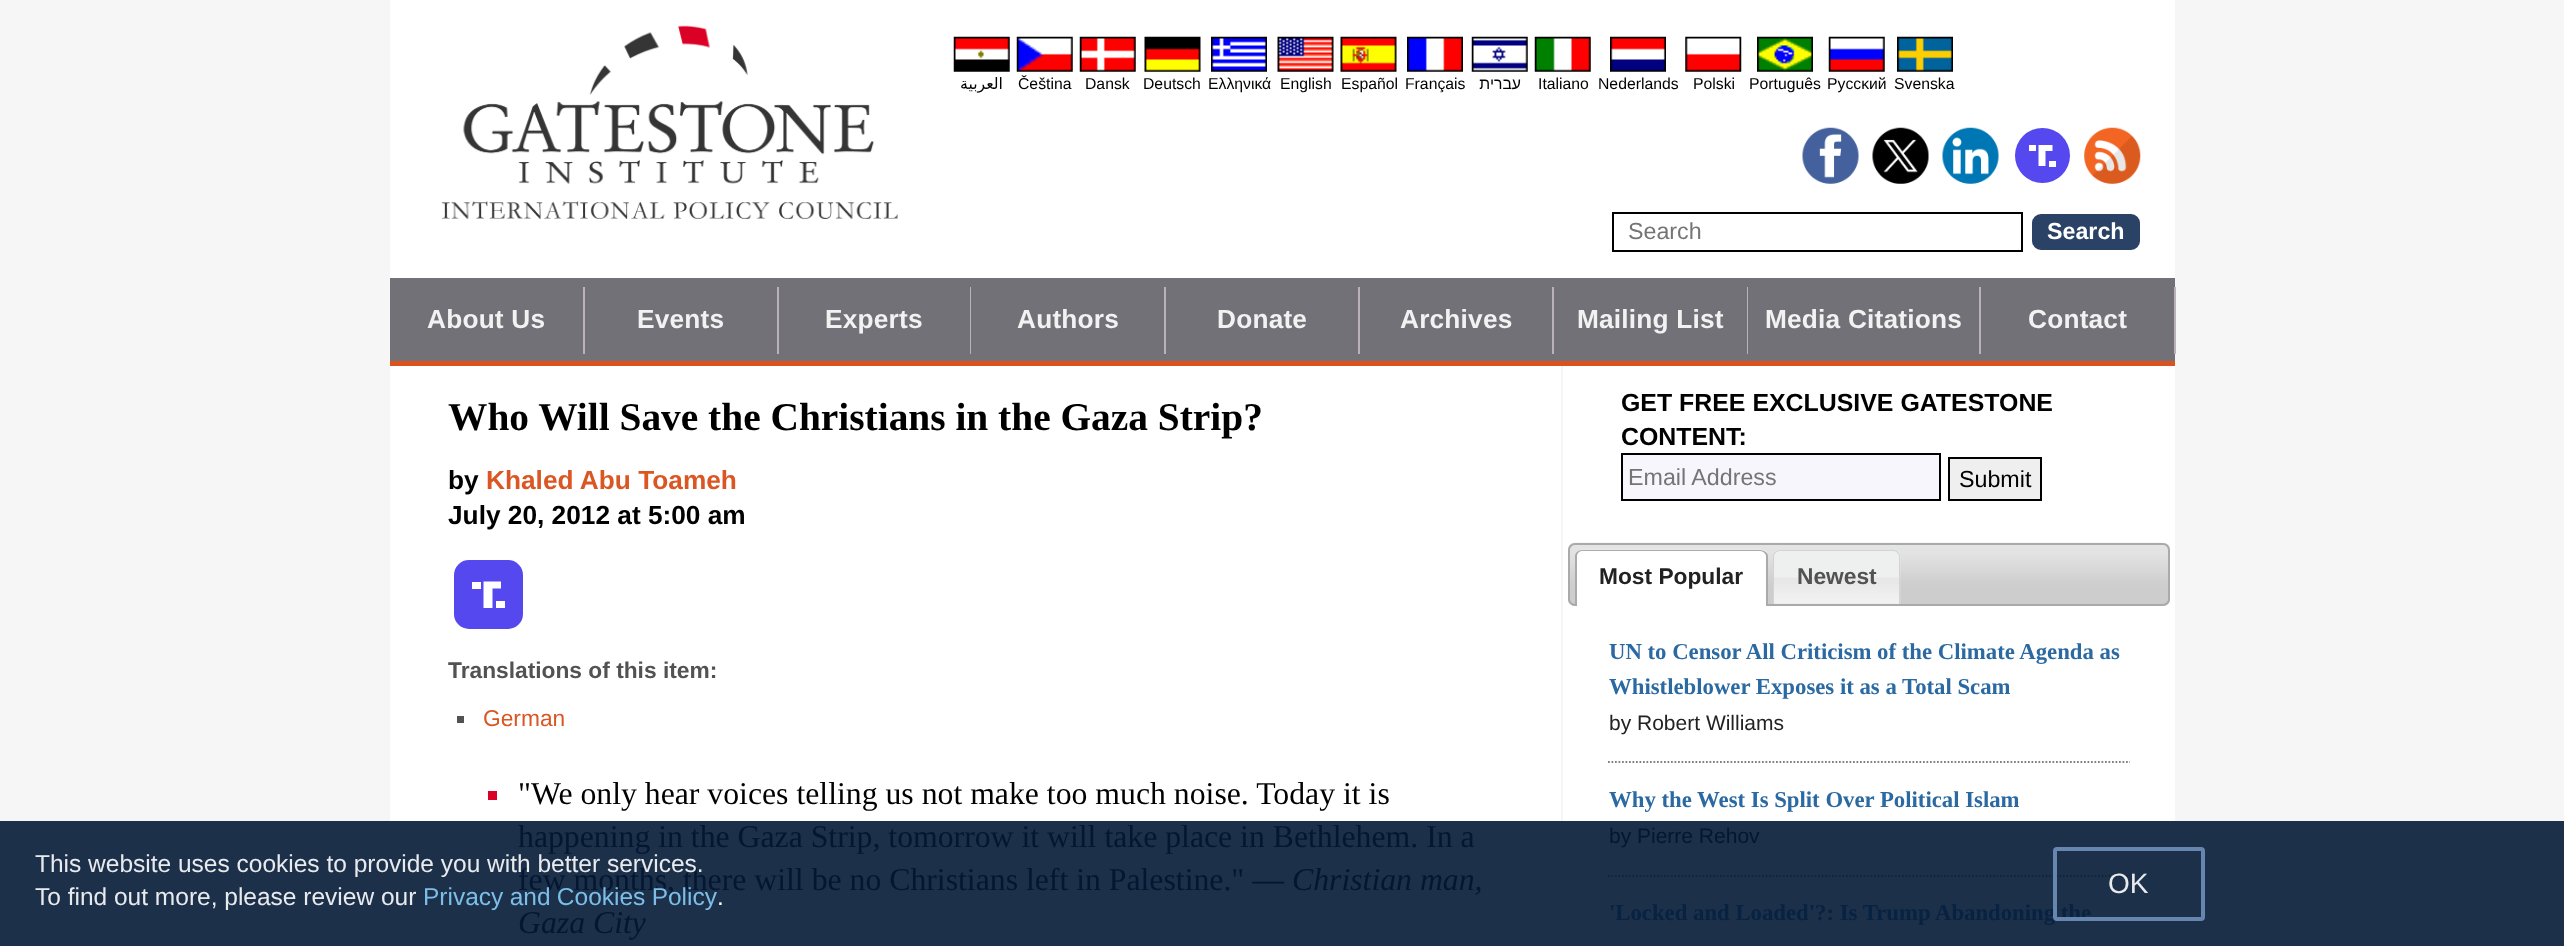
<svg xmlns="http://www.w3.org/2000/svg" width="2564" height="946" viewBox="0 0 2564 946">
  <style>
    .t1 { font: 15.75px DejaVu Sans; direction: rtl; fill: #000; }
    .t2 { font: 15.75px Liberation Sans; fill: #000; }
    .t3 { font: 15.75px Liberation Sans; direction: rtl; fill: #000; }
    .t4 { font: 23.25px Liberation Sans; fill: #757575; }
    .t5 { font: bold 23.25px Liberation Sans; fill: #fff; }
    .t6 { font: bold 26.25px Liberation Sans; letter-spacing: 0.2px; fill: #f2f2f2; }
    .t7 { font: bold 39.4px Liberation Serif; fill: #000; }
    .t8 { font: bold 26.25px Liberation Sans; fill: #000; }
    .t9 { font: bold 26.25px Liberation Sans; fill: #da5724; }
    .t10 { font: bold 22.75px Liberation Sans; fill: #525252; }
    .t11 { font: 22.75px Liberation Sans; fill: #da5724; }
    .t12 { font: 31.75px Liberation Serif; fill: #000; }
    .t13 { font: 31.75px Liberation Serif; fill: #041732; }
    .t14 { font: italic 31.75px Liberation Serif; fill: #041732; }
    .t15 { font: bold 24.9px Liberation Sans; fill: #000; }
    .t16 { font: 23.25px Liberation Sans; fill: #000; }
    .t17 { font: bold 22.75px Liberation Sans; fill: #222; }
    .t18 { font: bold 22.75px Liberation Serif; fill: #2a69a1; }
    .t19 { font: 21px Liberation Sans; fill: #222; }
    .t20 { font: 21px Liberation Sans; fill: #041732; }
    .t21 { font: bold 22.75px Liberation Serif; fill: #082242; }
    .t22 { font: 24.5px Liberation Sans; fill: #e8eaed; }
    .t23 { font: 24.5px Liberation Sans; fill: #7cbee8; }
    .t24 { font: 24.5px Liberation Sans; fill: #fff; }
    .t25 { font: 28px Liberation Sans; fill: #e8eaed; }
  </style>
  <rect width="100%" height="100%" fill="#f6f6f7"/>
  <rect x="0" y="821" width="2564" height="125" fill="#1c304a"/>
  <rect x="390" y="0" width="1785" height="821" fill="#fff"/>
  <image x="441" y="25" width="458" height="194" href="images/1.png"/>
  <image x="953" y="36" width="57" height="36" href="images/2.png"/>
  <image x="1016" y="36" width="57" height="36" href="images/3.png"/>
  <image x="1079" y="36" width="57" height="36" href="images/4.png"/>
  <image x="1144" y="36" width="57" height="36" href="images/5.png"/>
  <image x="1211" y="36" width="56" height="36" href="images/6.png"/>
  <image x="1277" y="36" width="57" height="36" href="images/7.png"/>
  <image x="1340" y="36" width="57" height="36" href="images/8.png"/>
  <image x="1407" y="36" width="56" height="36" href="images/9.png"/>
  <image x="1471" y="36" width="57" height="36" href="images/10.png"/>
  <image x="1534" y="36" width="57" height="36" href="images/11.png"/>
  <image x="1610" y="36" width="56" height="36" href="images/12.png"/>
  <image x="1685" y="36" width="57" height="36" href="images/13.png"/>
  <image x="1757" y="36" width="56" height="36" href="images/14.png"/>
  <image x="1828" y="36" width="57" height="36" href="images/15.png"/>
  <image x="1897" y="36" width="56" height="36" href="images/16.png"/>
  <text x="1003" y="89" class="t1">العربية</text>
  <text x="1018" y="89" class="t2">Čeština</text>
  <text x="1085" y="89" class="t2">Dansk</text>
  <text x="1143" y="89" class="t2">Deutsch</text>
  <text x="1208" y="89" class="t2">Ελληνικά</text>
  <text x="1280" y="89" class="t2">English</text>
  <text x="1341" y="89" class="t2">Español</text>
  <text x="1405" y="89" class="t2">Français</text>
  <text x="1521" y="89" class="t3">עברית</text>
  <text x="1538" y="89" class="t2">Italiano</text>
  <text x="1598" y="89" class="t2">Nederlands</text>
  <text x="1693" y="89" class="t2">Polski</text>
  <text x="1749" y="89" class="t2">Português</text>
  <text x="1827" y="89" class="t2">Pyccĸий</text>
  <text x="1894" y="89" class="t2">Svenska</text>
  <image x="1802" y="127" width="57" height="57" href="images/17.png"/>
  <image x="1872" y="127" width="57" height="57" href="images/18.png"/>
  <image x="1942" y="127" width="57" height="57" href="images/19.png"/>
  <circle cx="2042.5" cy="155.5" r="27.5" fill="#5448ee"/>
  <image x="2084" y="127" width="57" height="57" href="images/20.png"/>
  <rect x="2029" y="145" width="7" height="6" fill="#fff"/>
  <rect x="2049" y="161" width="7" height="6" fill="#fff"/>
  <path d="M2052.5 151V145H2038.5V166H2045.5V151Z" fill="#fff"/>
  <rect x="1613" y="213" width="409" height="38" fill="none" stroke="#000" stroke-width="2"/>
  <text x="1628" y="239" class="t4">Search</text>
  <rect x="2033" y="215" width="106" height="34" rx="8" fill="#294266" stroke="#294266" stroke-width="2"/>
  <text x="2047" y="239" class="t5">Search</text>
  <rect x="390" y="278" width="1785" height="83" fill="#727177"/>
  <rect x="390" y="361" width="1785" height="5" fill="#da521e"/>
  <rect x="583" y="287" width="2" height="67" fill="#b9b2b9"/>
  <text x="427" y="328" class="t6">About Us</text>
  <rect x="777" y="287" width="2" height="67" fill="#b9b2b9"/>
  <text x="637" y="328" class="t6">Events</text>
  <rect x="970" y="287" width="1" height="67" fill="#b9b2b9"/>
  <text x="825" y="328" class="t6">Experts</text>
  <rect x="1164" y="287" width="2" height="67" fill="#b9b2b9"/>
  <text x="1017" y="328" class="t6">Authors</text>
  <rect x="1358" y="287" width="2" height="67" fill="#b9b2b9"/>
  <text x="1217" y="328" class="t6">Donate</text>
  <rect x="1552" y="287" width="2" height="67" fill="#b9b2b9"/>
  <text x="1400" y="328" class="t6">Archives</text>
  <rect x="1747" y="287" width="1" height="67" fill="#b9b2b9"/>
  <text x="1577" y="328" class="t6">Mailing List</text>
  <rect x="1979" y="287" width="2" height="67" fill="#b9b2b9"/>
  <text x="1765" y="328" class="t6">Media Citations</text>
  <rect x="2174" y="287" width="2" height="67" fill="#b9b2b9"/>
  <text x="2028" y="328" class="t6">Contact</text>
  <text x="448" y="430" class="t7">Who Will Save the Christians in the Gaza Strip?</text>
  <text x="448" y="489" class="t8">by</text>
  <text x="486" y="489" class="t9">Khaled Abu Toameh</text>
  <text x="448" y="524" class="t8">July 20, 2012 at 5:00 am</text>
  <rect x="454" y="560" width="69" height="69" rx="15" fill="#5448ee"/>
  <rect x="472" y="582" width="9" height="7" fill="#fff"/>
  <rect x="496" y="601" width="9" height="7" fill="#fff"/>
  <path d="M501 588.5V581.5H483.5V608H492.5V588.5Z" fill="#fff"/>
  <text x="448" y="678" class="t10">Translations of this item:</text>
  <rect x="457" y="716" width="7" height="7" fill="#525252"/>
  <text x="483" y="726" class="t11">German</text>
  <rect x="488" y="791" width="9" height="9" fill="#da0026"/>
  <text x="518" y="804" class="t12">"We only hear voices telling us not make too much noise. Today it is</text>
  <text x="518" y="847" class="t13">happening in the Gaza Strip, tomorrow it will take place in Bethlehem. In a</text>
  <text x="518" y="890" class="t13">few months, there will be no Christians left in Palestine." —</text>
  <text x="1292" y="890" class="t14">Christian man,</text>
  <text x="518" y="933" class="t14">Gaza City</text>
  <rect x="1561" y="366" width="2" height="455" fill="#f6f6f7"/>
  <text x="1621" y="411" class="t15">GET FREE EXCLUSIVE GATESTONE</text>
  <text x="1621" y="445" class="t15">CONTENT:</text>
  <rect x="1622" y="454" width="318" height="46" fill="#f6f6fc" stroke="#000" stroke-width="2"/>
  <text x="1628" y="485" class="t4">Email Address</text>
  <rect x="1949" y="458" width="92" height="42" fill="#efefef" stroke="#000" stroke-width="2"/>
  <text x="1959" y="487" class="t16">Submit</text>
  <rect x="1568" y="543" width="602" height="63" rx="7" fill="#ccc"/>
  <image x="1568" y="542" width="602" height="60" href="images/21.png"/>
  <rect x="1569" y="544" width="600" height="61" rx="6" fill="none" stroke="#aaa" stroke-width="2"/>
  <path d="M1582 551H1761C1764 551 1766 553 1766 556V606H1577V556C1577 553 1579 551 1582 551Z" fill="#fff"/>
  <image x="1575" y="549" width="193" height="57" href="images/22.png"/>
  <path d="M1582 550H1760C1764 550 1768 553 1768 556V606H1575V556C1575 553 1578 550 1582 550ZM1582 551H1760C1763 551 1766 554 1766 556V606H1577V556C1577 554 1579 551 1582 551Z" fill="#aaa" fill-rule="evenodd"/>
  <text x="1599" y="584" class="t17">Most Popular</text>
  <path d="M1780 551H1894C1897 551 1899 553 1899 556V604H1775V556C1775 553 1777 551 1780 551Z" fill="#e6e6e6"/>
  <image x="1773" y="550" width="128" height="54" href="images/23.png"/>
  <path d="M1780 550H1894C1897 550 1900 553 1900 556V604H1773V556C1773 553 1776 550 1780 550ZM1780 551H1894C1896 551 1899 554 1899 556V604H1774V556C1774 554 1777 551 1780 551Z" fill="#d3d3d3" fill-rule="evenodd"/>
  <text x="1797" y="584" class="t10">Newest</text>
  <path d="M1608 762H2130" fill="none" stroke="#808080" stroke-width="1.8" stroke-dasharray="1.75 1.75"/>
  <text x="1609" y="659" class="t18">UN to Censor All Criticism of the Climate Agenda as</text>
  <text x="1609" y="694" class="t18">Whistleblower Exposes it as a Total Scam</text>
  <text x="1609" y="730" class="t19">by Robert Williams</text>
  <path d="M1608 876H2130" fill="none" stroke="#10243e" stroke-width="1.8" stroke-dasharray="1.75 1.75"/>
  <text x="1609" y="807" class="t18">Why the West Is Split Over Political Islam</text>
  <text x="1609" y="843" class="t20">by Pierre Rehov</text>
  <text x="1609" y="920" class="t21">'Locked and Loaded'?: Is Trump Abandoning the</text>
  <text x="35" y="872" class="t22">This website uses cookies to provide you with better services.</text>
  <text x="35" y="905" class="t22">To find out more, please review our</text>
  <text x="423" y="905" word-spacing="-0.5" class="t23">Privacy and Cookies Policy</text>
  <text x="717" y="905" class="t24">.</text>
  <rect x="2055" y="849" width="148" height="70" rx="2" fill="none" stroke="#6f90bbe6" stroke-width="4"/>
  <text x="2108" y="893" class="t25">OK</text>
</svg>
